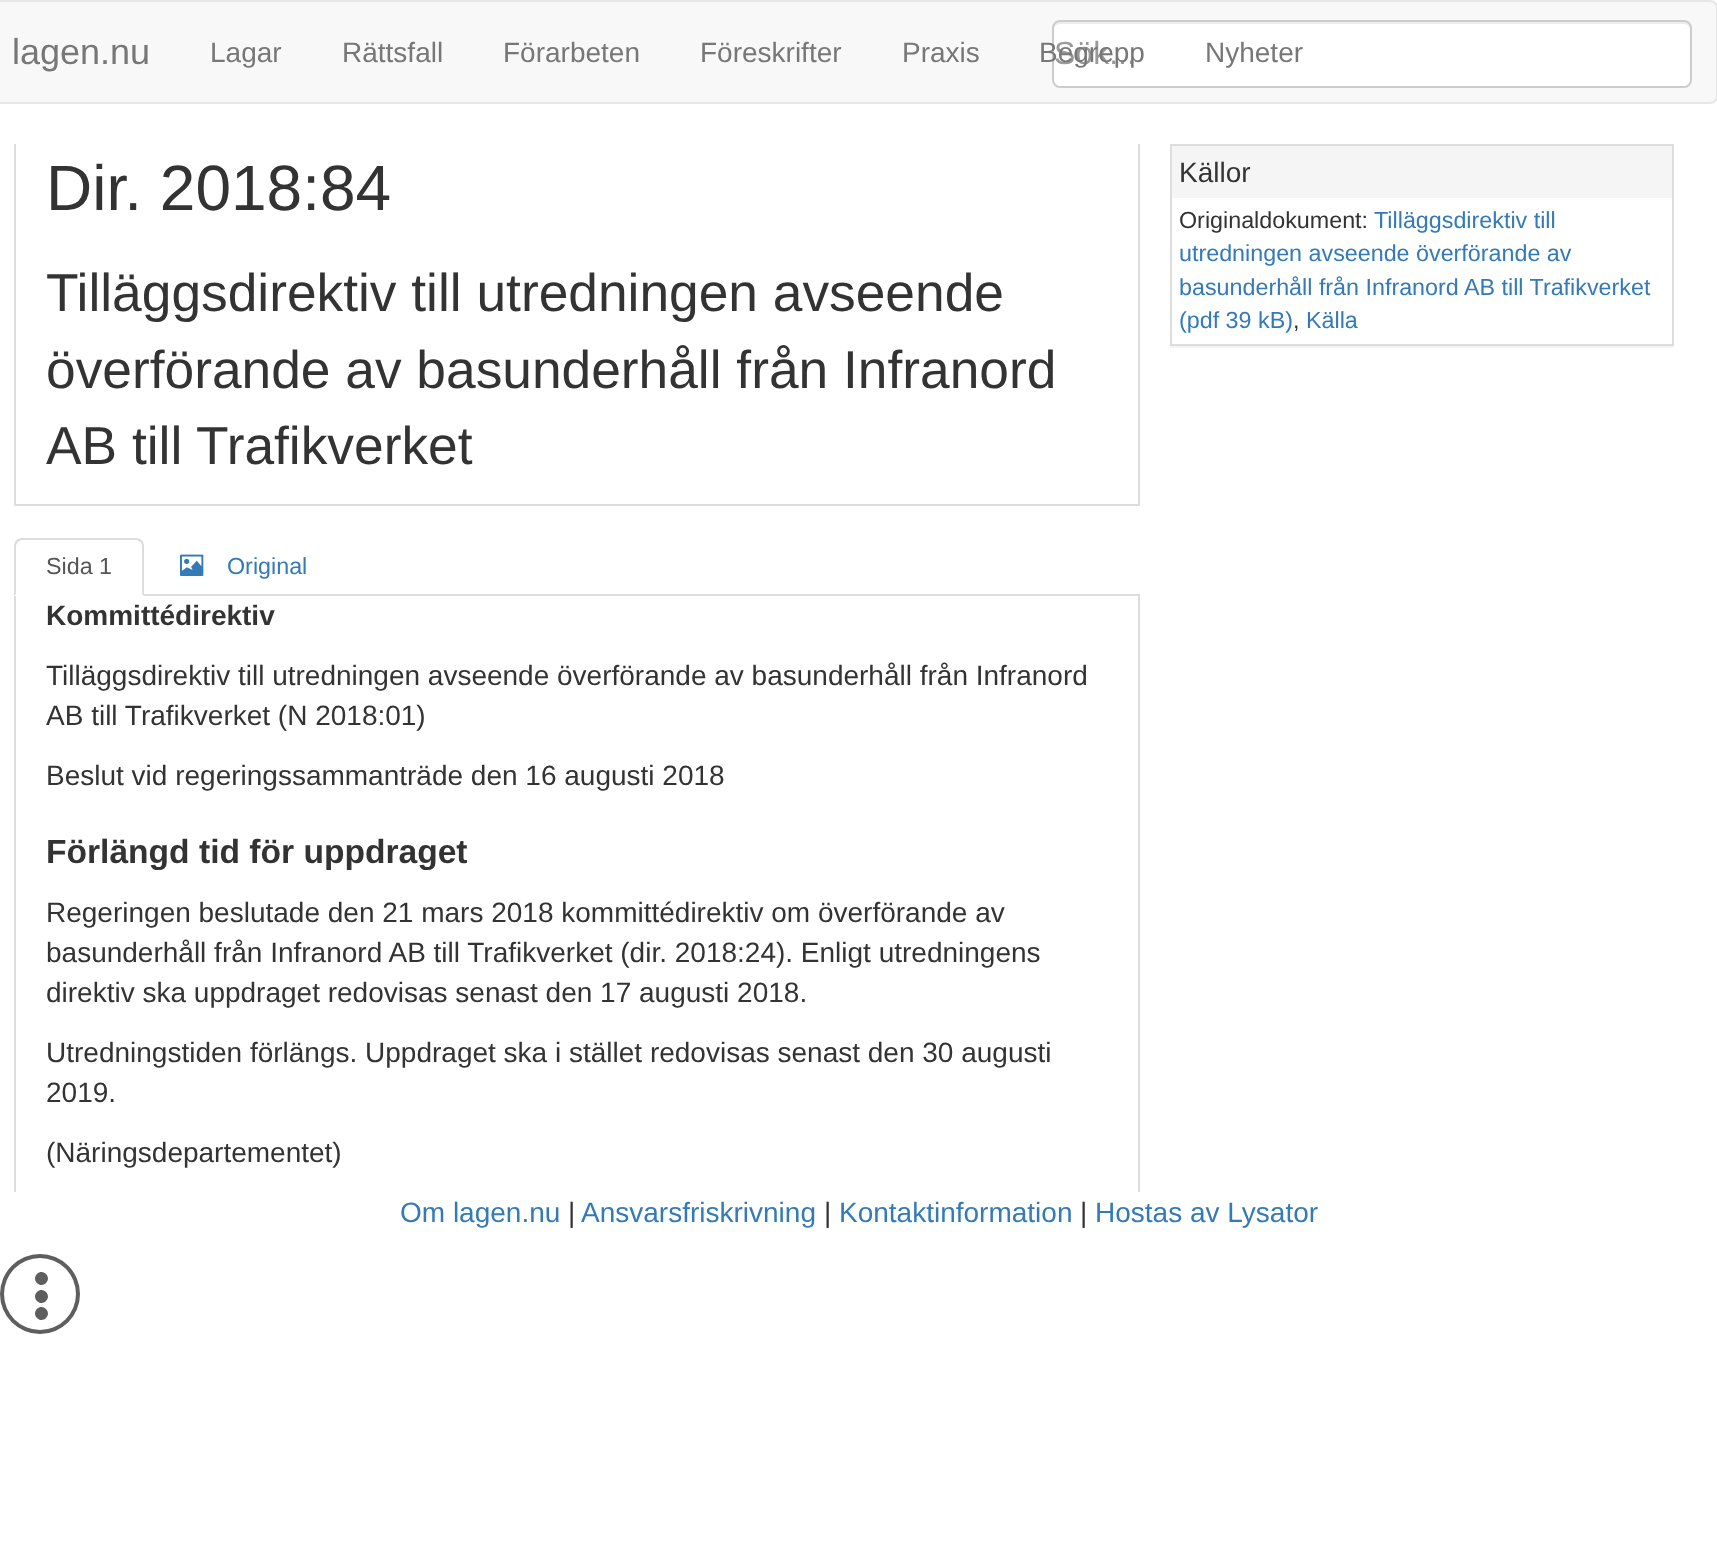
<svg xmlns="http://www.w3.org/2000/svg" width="1717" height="1567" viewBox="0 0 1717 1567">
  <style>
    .t1 { font: 36px Liberation Sans; fill: #777; }
    .t2 { font: 32px Liberation Sans; fill: #999; }
    .t3 { font: 28px Liberation Sans; fill: #777; }
    .t4 { font: 64px Liberation Sans; fill: #333; }
    .t5 { font: 53.3px Liberation Sans; fill: #333; }
    .t6 { font: 28px Liberation Sans; fill: #333; }
    .t7 { font: 23.3px Liberation Sans; fill: #333; }
    .t8 { font: 23.3px Liberation Sans; fill: #337ab7; }
    .t9 { font: 23.3px Liberation Sans; fill: #555; }
    .t10 { font: bold 28px Liberation Sans; fill: #333; }
    .t11 { font: bold 33.6px Liberation Sans; fill: #333; }
    .t12 { font: 28px Liberation Sans; fill: #337ab7; }
  </style>
  <defs>
    <clipPath id="clip1"><rect x="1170" y="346" width="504" height="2"/></clipPath>
  </defs>
  <rect width="100%" height="100%" fill="#fff"/>
  <rect x="-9" y="1" width="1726" height="102" rx="7" fill="#f8f8f8" stroke="#e7e7e7" stroke-width="2"/>
  <text x="12" y="64" class="t1">lagen.nu</text>
  <rect x="1052" y="20" width="640" height="68" rx="8" fill="#fff"/>
  <path d="M1060 24H1684C1687 24 1690 27 1690 30V28C1690 25 1687 22 1684 22H1060C1057 22 1054 25 1054 28V30C1054 27 1057 24 1060 24Z" fill="#ececec"/>
  <rect x="1053" y="21" width="638" height="66" rx="7" fill="none" stroke="#ccc" stroke-width="2"/>
  <text x="1054" y="64" class="t2">Sök...</text>
  <text x="210" y="62" class="t3">Lagar</text>
  <text x="342" y="62" class="t3">Rättsfall</text>
  <text x="503" y="62" class="t3">Förarbeten</text>
  <text x="700" y="62" class="t3">Föreskrifter</text>
  <text x="902" y="62" class="t3">Praxis</text>
  <text x="1039" y="62" class="t3">Begrepp</text>
  <text x="1205" y="62" class="t3">Nyheter</text>
  <rect x="1138" y="144" width="2" height="360" fill="#ddd"/>
  <rect x="14" y="144" width="2" height="360" fill="#ddd"/>
  <text x="46" y="210" class="t4">Dir. 2018:84</text>
  <text x="46" y="311" class="t5">Tilläggsdirektiv till utredningen avseende</text>
  <text x="46" y="388" class="t5">överförande av basunderhåll från Infranord</text>
  <text x="46" y="464" class="t5">AB till Trafikverket</text>
  <g clip-path="url(#clip1)">
    <rect x="1170" y="146" width="504" height="202" fill="#0000000d" filter="blur(1px)"/>
  </g>
  <rect x="1171" y="145" width="502" height="200" fill="none" stroke="#ddd" stroke-width="2"/>
  <rect x="1172" y="146" width="500" height="52" fill="#f5f5f5"/>
  <text x="1179" y="182" class="t6">Källor</text>
  <text x="1179" y="228" class="t7">Originaldokument:</text>
  <text x="1374" y="228" class="t8">Tilläggsdirektiv till</text>
  <text x="1179" y="261" class="t8">utredningen avseende överförande av</text>
  <text x="1179" y="295" class="t8">basunderhåll från Infranord AB till Trafikverket</text>
  <text x="1179" y="328" class="t8">(pdf 39 kB)</text>
  <text x="1293" y="328" class="t7">,</text>
  <text x="1306" y="328" class="t8">Källa</text>
  <rect x="14" y="504" width="1126" height="2" fill="#ddd"/>
  <rect x="144" y="594" width="996" height="2" fill="#ddd"/>
  <path d="M22 538C20 538 18 539 16 540L18 542L21 540H137L140 542L142 540C140 539 138 538 136 538Z" fill="#ddd"/>
  <path d="M144 596V546C144 544 143 542 142 540L140 542C141 543 142 544 142 546V594Z" fill="#ddd"/>
  <path d="M14 596L16 594V546C16 544 17 543 18 542L16 540C15 542 14 544 14 546Z" fill="#ddd"/>
  <text x="46" y="574" class="t9">Sida 1</text>
  <image x="180" y="554" width="24" height="22" href="images/1.png"/>
  <text x="227" y="574" class="t8">Original</text>
  <rect x="1138" y="596" width="2" height="596" fill="#ddd"/>
  <rect x="14" y="596" width="2" height="596" fill="#ddd"/>
  <text x="46" y="625" class="t10">Kommittédirektiv</text>
  <text x="46" y="685" class="t6">Tilläggsdirektiv till utredningen avseende överförande av basunderhåll från Infranord</text>
  <text x="46" y="725" class="t6">AB till Trafikverket (N 2018:01)</text>
  <text x="46" y="785" class="t6">Beslut vid regeringssammanträde den 16 augusti 2018</text>
  <text x="46" y="863" class="t11">Förlängd tid för uppdraget</text>
  <text x="46" y="922" class="t6">Regeringen beslutade den 21 mars 2018 kommittédirektiv om överförande av</text>
  <text x="46" y="962" class="t6">basunderhåll från Infranord AB till Trafikverket (dir. 2018:24). Enligt utredningens</text>
  <text x="46" y="1002" class="t6">direktiv ska uppdraget redovisas senast den 17 augusti 2018.</text>
  <text x="46" y="1062" class="t6">Utredningstiden förlängs. Uppdraget ska i stället redovisas senast den 30 augusti</text>
  <text x="46" y="1102" class="t6">2019.</text>
  <text x="46" y="1162" class="t6">(Näringsdepartementet)</text>
  <text x="400" y="1222" class="t12">Om lagen.nu</text>
  <text x="568" y="1222" class="t6">|</text>
  <text x="581" y="1222" class="t12">Ansvarsfriskrivning</text>
  <text x="824" y="1222" class="t6">|</text>
  <text x="839" y="1222" class="t12">Kontaktinformation</text>
  <text x="1080" y="1222" class="t6">|</text>
  <text x="1095" y="1222" class="t12">Hostas av Lysator</text>
  <circle cx="40" cy="1294" r="40" fill="#5e5e5e"/>
  <circle cx="40" cy="1294" r="36" fill="#fff"/>
  <path d="M37 1274C43 1268 52 1277 46 1283C40 1289 31 1280 37 1274ZM37 1292C43 1286 52 1295 46 1301C40 1307 31 1298 37 1292ZM37 1309C43 1303 52 1312 46 1318C40 1324 31 1315 37 1309Z" fill="#5e5e5e"/>
</svg>
